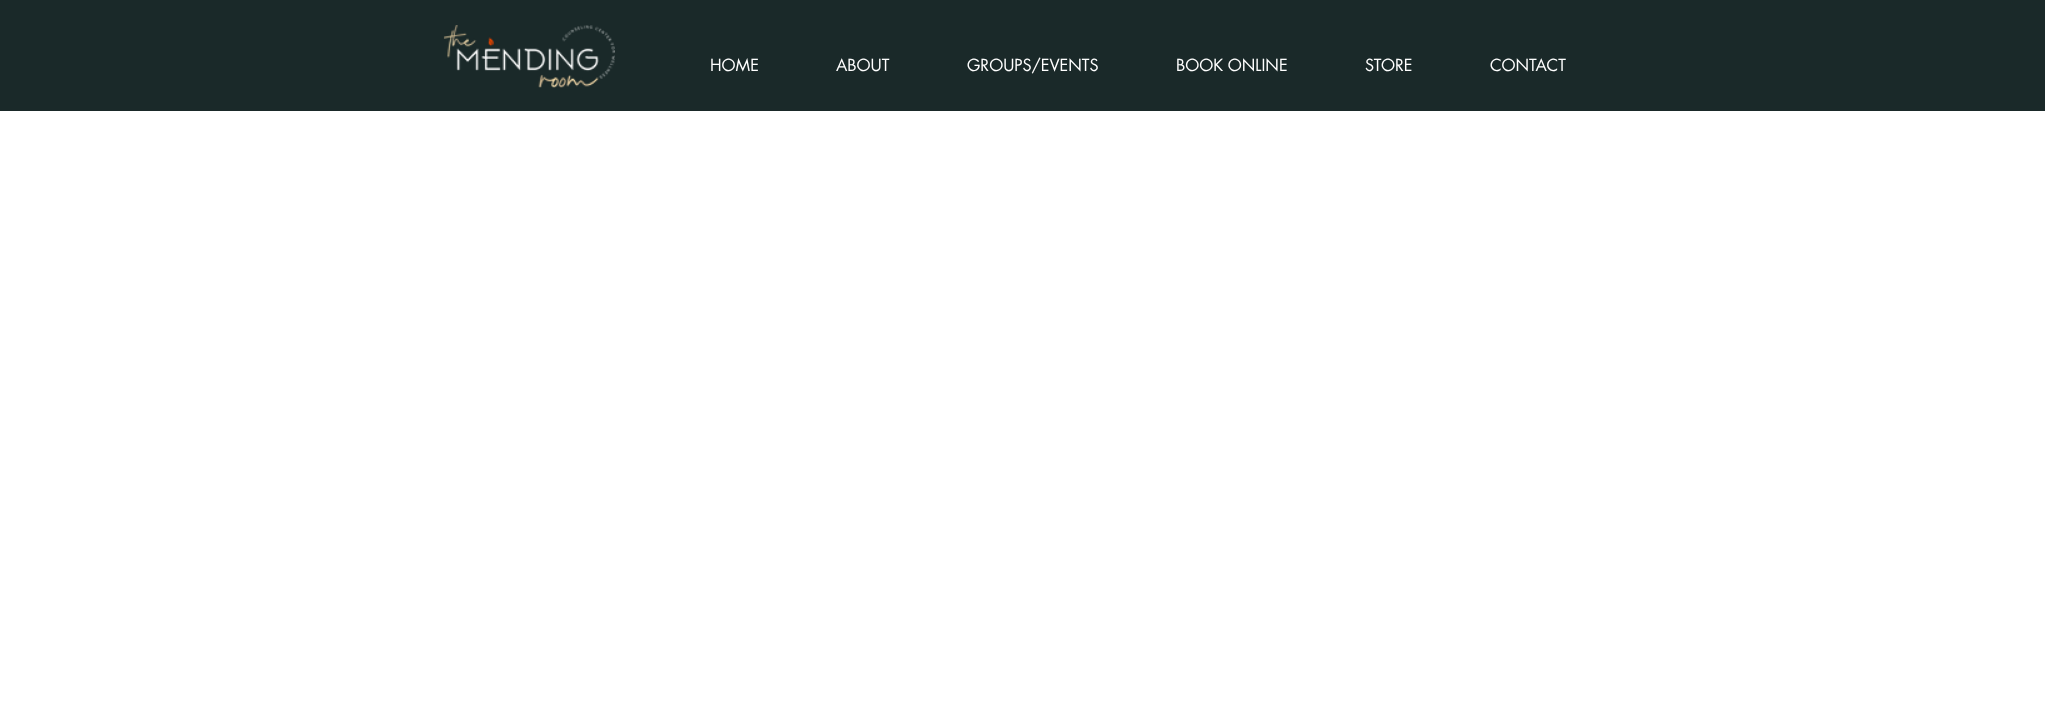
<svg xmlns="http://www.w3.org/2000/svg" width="2045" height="709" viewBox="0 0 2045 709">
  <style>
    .t1 { font: 16.25px futura; fill: #fff; }
  </style>
  <rect width="100%" height="100%" fill="#fff"/>
  <rect x="0" y="0" width="2045" height="111" fill="#1a2929"/>
  <image x="443" y="25" width="172" height="63" href="images/1.png"/>
  <text x="710" y="71" class="t1">HOME</text>
  <text x="836" y="71" class="t1">ABOUT</text>
  <text x="967" y="71" class="t1">GROUPS/EVENTS</text>
  <text x="1176" y="71" class="t1">BOOK ONLINE</text>
  <text x="1365" y="71" class="t1">STORE</text>
  <text x="1490" y="71" class="t1">CONTACT</text>
</svg>
